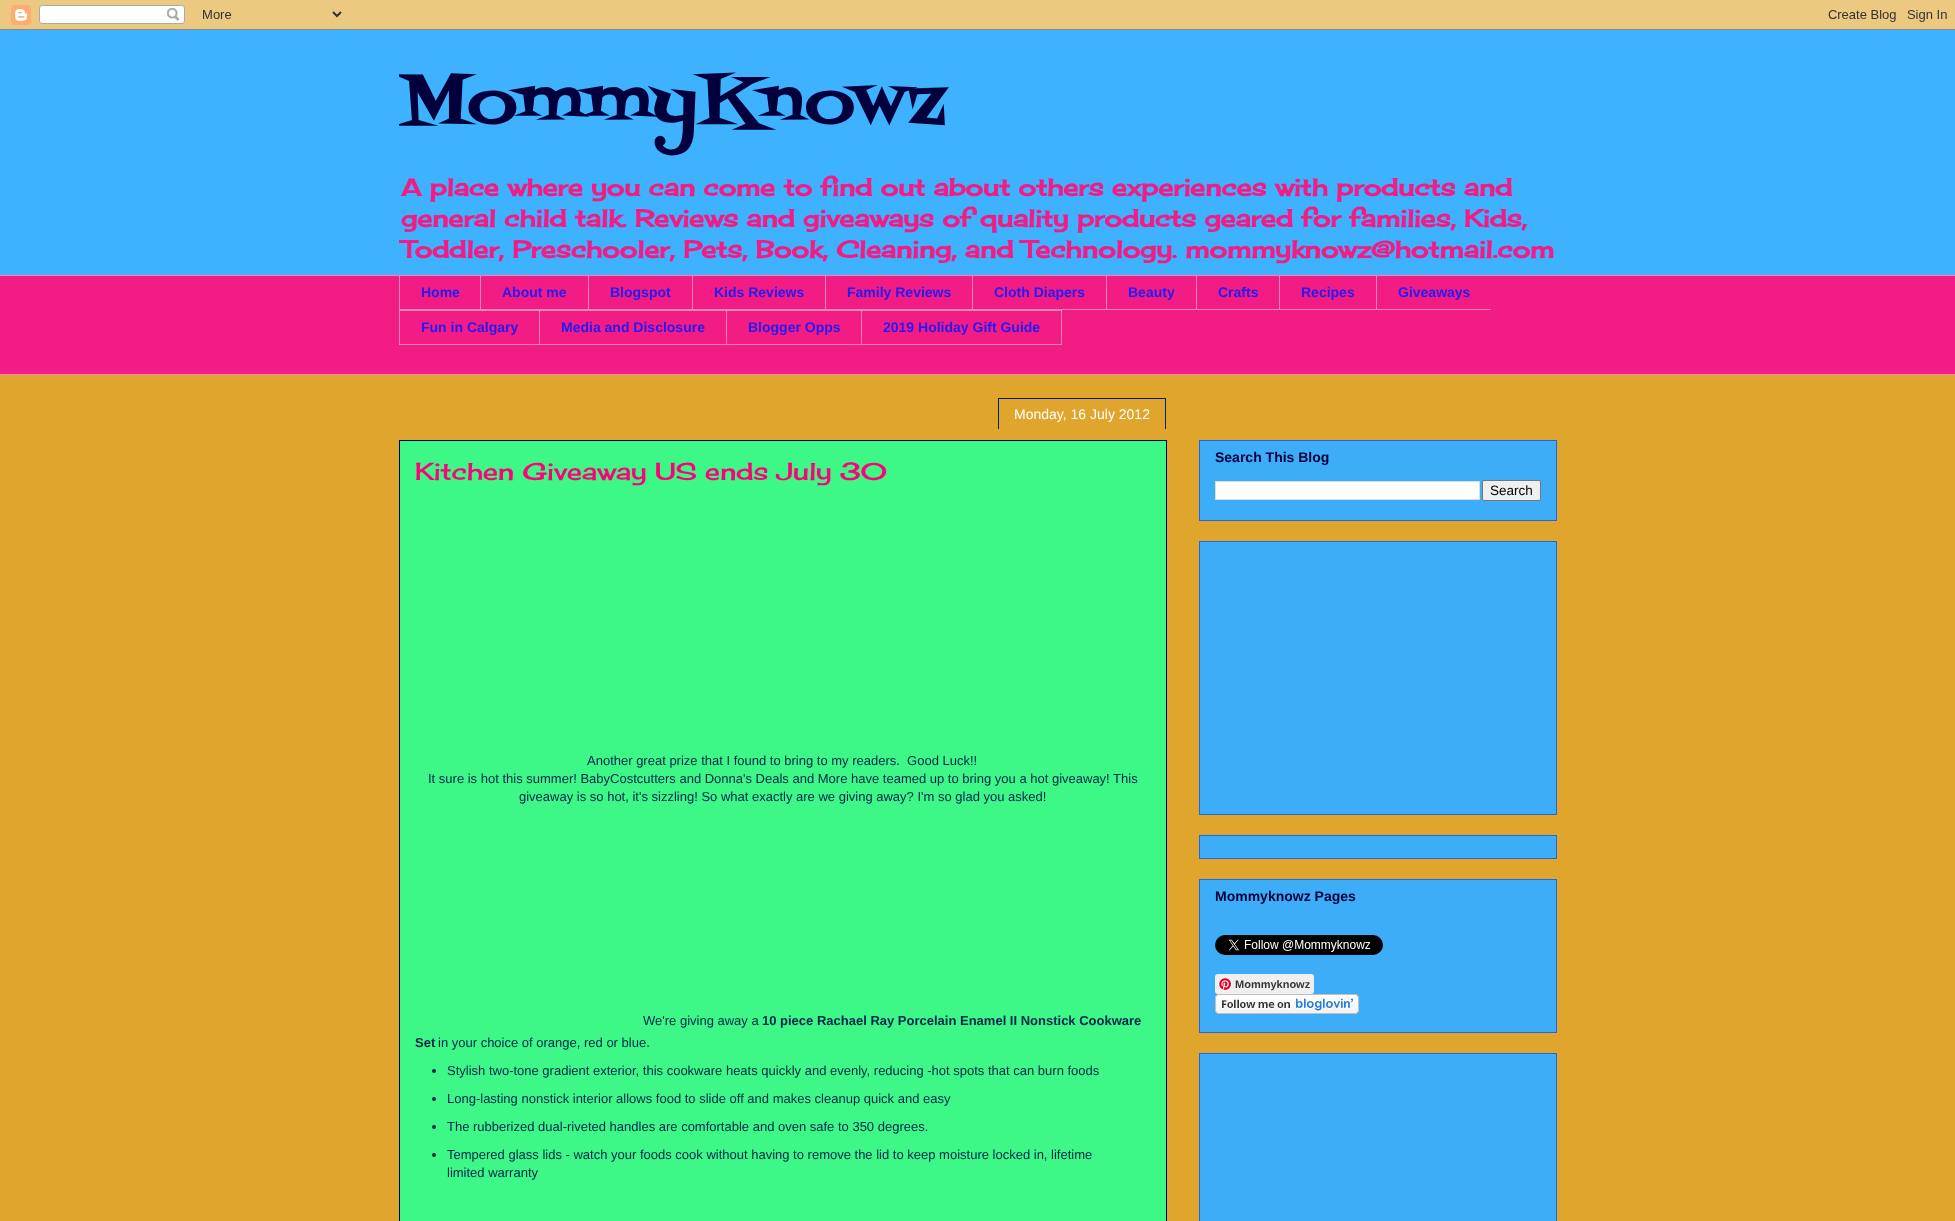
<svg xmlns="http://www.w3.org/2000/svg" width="1955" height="1221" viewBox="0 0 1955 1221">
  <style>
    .t1 { font: 70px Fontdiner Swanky; fill: #01003c; }
    .t2 { font: bold 24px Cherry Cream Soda; fill: #f31c84; }
    .t3 { font: bold 14px Liberation Sans; fill: #221cf3; }
    .t4 { font: 14px Liberation Sans; fill: #fff; }
    .t5 { font: 24px Cherry Cream Soda; fill: #ff007a; }
    .t6 { font: 13px Liberation Sans; fill: #00264e; }
    .t7 { font: bold 13px Liberation Sans; fill: #00264e; }
    .t8 { font: bold 14px Liberation Sans; fill: #01003c; }
    .t9 { font: 13.5px Liberation Sans; fill: #000; }
    .t10 { font: bold 11px Liberation Sans; fill: #363636; }
  </style>
  <defs>
    <clipPath id="clip1"><rect x="399" y="30" width="1158" height="245"/></clipPath>
  </defs>
  <rect width="100%" height="100%" fill="#e0a52d"/>
  <image x="0" y="0" width="1955" height="30" href="images/1.png"/>
  <rect x="0" y="30" width="1955" height="245" fill="#3eb2ff"/>
  <g clip-path="url(#clip1)">
    <text x="399" y="124" class="t1">MommyKnowz</text>
  </g>
  <text x="401" y="196" class="t2">A place where you can come to find out about others experiences with products and</text>
  <text x="401" y="227" class="t2">general child talk. Reviews and giveaways of quality products geared for families, Kids,</text>
  <g clip-path="url(#clip1)">
    <text x="401" y="258" class="t2">Toddler, Preschooler, Pets, Book, Cleaning, and Technology.</text>
  </g>
  <text x="1185" y="258" class="t2">mommyknowz@hotmail.com</text>
  <rect x="0" y="276" width="1955" height="98" fill="#f31c84"/>
  <rect x="0" y="275" width="1955" height="1" fill="#f387bb"/>
  <rect x="399" y="309" width="1092" height="1" fill="#f387bb"/>
  <rect x="399" y="275" width="1" height="35" fill="#f387bb"/>
  <text x="421" y="297" class="t3">Home</text>
  <rect x="480" y="275" width="1" height="35" fill="#f387bb"/>
  <text x="502" y="297" class="t3">About me</text>
  <rect x="588" y="275" width="1" height="35" fill="#f387bb"/>
  <text x="610" y="297" class="t3">Blogspot</text>
  <rect x="692" y="275" width="1" height="35" fill="#f387bb"/>
  <text x="714" y="297" class="t3">Kids Reviews</text>
  <rect x="825" y="275" width="1" height="35" fill="#f387bb"/>
  <text x="847" y="297" class="t3">Family Reviews</text>
  <rect x="972" y="275" width="1" height="35" fill="#f387bb"/>
  <text x="994" y="297" class="t3">Cloth Diapers</text>
  <rect x="1106" y="275" width="1" height="35" fill="#f387bb"/>
  <text x="1128" y="297" class="t3">Beauty</text>
  <rect x="1196" y="275" width="1" height="35" fill="#f387bb"/>
  <text x="1218" y="297" class="t3">Crafts</text>
  <rect x="1279" y="275" width="1" height="35" fill="#f387bb"/>
  <text x="1301" y="297" class="t3">Recipes</text>
  <rect x="1376" y="275" width="1" height="35" fill="#f387bb"/>
  <text x="1398" y="297" class="t3">Giveaways</text>
  <rect x="399" y="310" width="462" height="1" fill="#f387bb"/>
  <rect x="399" y="344" width="462" height="1" fill="#f387bb"/>
  <rect x="399" y="310" width="1" height="35" fill="#f387bb"/>
  <text x="421" y="332" class="t3">Fun in Calgary</text>
  <rect x="539" y="310" width="1" height="35" fill="#f387bb"/>
  <text x="561" y="332" class="t3">Media and Disclosure</text>
  <rect x="726" y="310" width="1" height="35" fill="#f387bb"/>
  <text x="748" y="332" class="t3">Blogger Opps</text>
  <rect x="861.5" y="310.5" width="200" height="34" fill="none" stroke="#f387bb"/>
  <text x="883" y="332" class="t3">2019 Holiday Gift Guide</text>
  <rect x="0" y="374" width="1955" height="1" fill="#f387bb"/>
  <rect x="399.5" y="440.5" width="767" height="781" fill="#3df787" stroke="#01003c"/>
  <rect x="998" y="398" width="168" height="1" fill="#026"/>
  <rect x="1165" y="399" width="1" height="30" fill="#026"/>
  <rect x="998" y="399" width="1" height="30" fill="#026"/>
  <text x="1014" y="419" class="t4">Monday, 16 July 2012</text>
  <text x="415" y="480" class="t5">Kitchen Giveaway US ends July 30</text>
  <text x="587" y="765" class="t6" xml:space="preserve">Another great prize that I found to bring to my readers.  Good Luck!!</text>
  <text x="428" y="783" class="t6">It sure is hot this summer! BabyCostcutters and Donna's Deals and More have teamed up to bring you a hot giveaway! This</text>
  <text x="519" y="801" class="t6">giveaway is so hot, it's sizzling! So what exactly are we giving away? I'm so glad you asked!</text>
  <text x="643" y="1025" class="t6">We're giving away a</text>
  <text x="762" y="1025" class="t7">10 piece Rachael Ray Porcelain Enamel II Nonstick Cookware</text>
  <text x="415" y="1047" class="t7">Set</text>
  <text x="438" y="1047" class="t6">in your choice of orange, red or blue.</text>
  <circle cx="434" cy="1071" r="2" fill="#00264e"/>
  <text x="447" y="1075" class="t6">Stylish two-tone gradient exterior, this cookware heats quickly and evenly, reducing -hot spots that can burn foods</text>
  <circle cx="434" cy="1099" r="2" fill="#00264e"/>
  <text x="447" y="1103" class="t6">Long-lasting nonstick interior allows food to slide off and makes cleanup quick and easy</text>
  <circle cx="434" cy="1127" r="2" fill="#00264e"/>
  <text x="447" y="1131" class="t6">The rubberized dual-riveted handles are comfortable and oven safe to 350 degrees.</text>
  <circle cx="434" cy="1155" r="2" fill="#00264e"/>
  <text x="447" y="1159" class="t6">Tempered glass lids - watch your foods cook without having to remove the lid to keep moisture locked in, lifetime</text>
  <text x="447" y="1177" class="t6">limited warranty</text>
  <rect x="1199.5" y="440.5" width="357" height="80" fill="#3dadf7" stroke="#2268dc"/>
  <text x="1215" y="462" class="t8">Search This Blog</text>
  <rect x="1215.5" y="481.5" width="264" height="18" fill="#fff" stroke="#ddd"/>
  <rect x="1482.5" y="480.5" width="58" height="20" rx="1.5" fill="#efefef" stroke="#767676"/>
  <text x="1490" y="495" class="t9">Search</text>
  <rect x="1199.5" y="541.5" width="357" height="273" fill="#3dadf7" stroke="#2268dc"/>
  <rect x="1199.5" y="835.5" width="357" height="23" fill="#3dadf7" stroke="#2268dc"/>
  <rect x="1199.5" y="879.5" width="357" height="153" fill="#3dadf7" stroke="#2268dc"/>
  <text x="1215" y="901" class="t8">Mommyknowz Pages</text>
  <image x="1215" y="935" width="168" height="20" href="images/2.png"/>
  <rect x="1215" y="974" width="99" height="20" rx="3" fill="#efefef"/>
  <image x="1218" y="977" width="14" height="14" href="images/3.png"/>
  <text x="1235" y="988" class="t10">Mommyknowz</text>
  <image x="1215" y="994" width="144" height="20" href="images/4.png"/>
  <rect x="1199.5" y="1053.5" width="357" height="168" fill="#3dadf7" stroke="#2268dc"/>
</svg>
